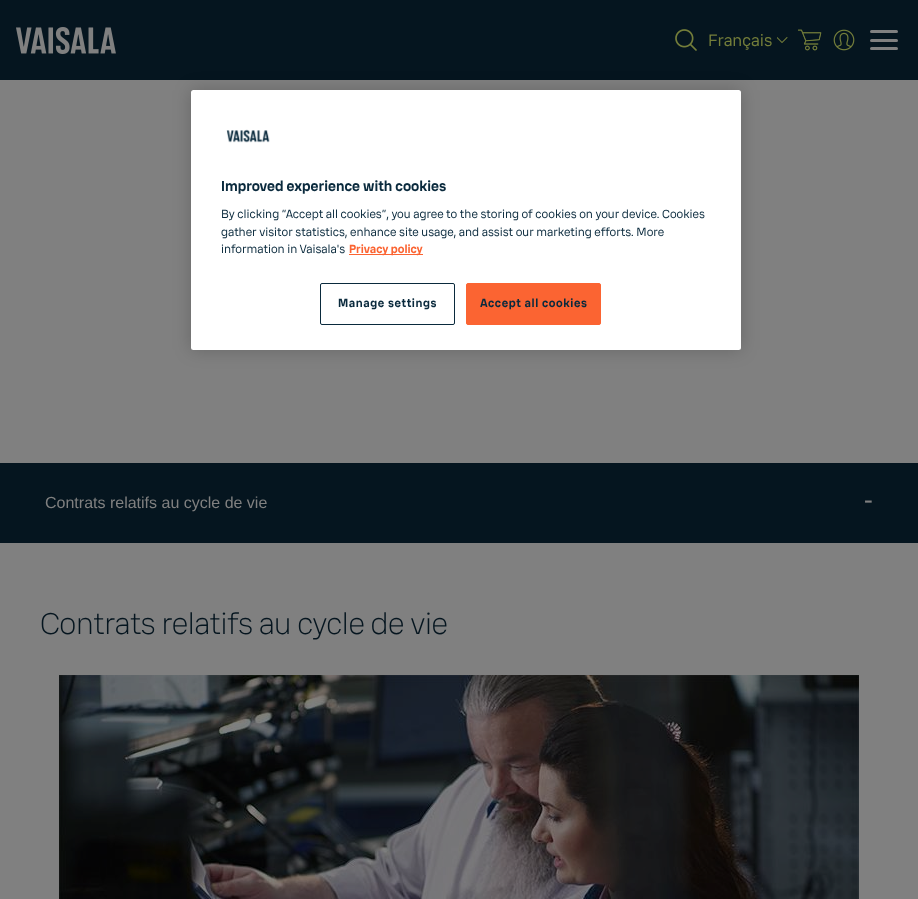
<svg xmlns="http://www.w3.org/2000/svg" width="918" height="899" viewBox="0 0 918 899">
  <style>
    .t1 { font: 16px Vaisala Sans; fill: #747e3a; }
    .t2 { font: 16px Liberation Sans; fill: #808080; }
    .t3 { font: bold 18px Vaisala Sans; fill: #808080; }
    .t4 { font: 300 29px Vaisala Sans; letter-spacing: -0.6px; fill: #05151f; }
    .t5 { font: bold 14px Vaisala Sans; fill: #0a2a3d; }
    .t6 { font: 11.4px Vaisala Sans; fill: #0a2a3d; }
    .t7 { font: bold 11.4px Vaisala Sans; fill: #fb6432; }
    .t8 { font: bold 11.4px Vaisala Sans; letter-spacing: 0.6px; fill: #0a2a3d; }
  </style>
  <rect width="100%" height="100%" fill="#808080"/>
  <rect x="0" y="0" width="918" height="80" fill="#05151f"/>
  <image x="16" y="27" width="100" height="27" href="images/1.png"/>
  <image x="675" y="29" width="22" height="22" href="images/2.png"/>
  <text x="708" y="46" class="t1">Français</text>
  <image x="777" y="37" width="11" height="6" href="images/3.png"/>
  <image x="798" y="29" width="24" height="22" href="images/4.png"/>
  <image x="833" y="29" width="22" height="22" href="images/5.png"/>
  <rect x="870" y="30" width="28" height="3" rx="1.5" fill="#808080"/>
  <rect x="870" y="39" width="28" height="3" rx="1.5" fill="#808080"/>
  <rect x="870" y="47" width="28" height="3" rx="1.5" fill="#808080"/>
  <rect x="0" y="463" width="918" height="80" fill="#05151f"/>
  <text x="45" y="508" class="t2">Contrats relatifs au cycle de vie</text>
  <text x="864" y="508" class="t3">−</text>
  <text x="40" y="634" class="t4">Contrats relatifs au cycle de vie</text>
  <image x="59" y="675" width="800" height="224" href="images/6.png"/>
  <rect x="191" y="90" width="550" height="260" rx="2.5" fill="#00000033" filter="blur(9px)"/>
  <rect x="191" y="90" width="550" height="260" rx="2.5" fill="#fff"/>
  <image x="226" y="129" width="44" height="14" href="images/7.png"/>
  <text x="221" y="191" class="t5">Improved experience with cookies</text>
  <text x="221" y="218" class="t6">By clicking “Accept all cookies”, you agree to the storing of cookies on your device. Cookies</text>
  <text x="221" y="236" class="t6">gather visitor statistics, enhance site usage, and assist our marketing efforts. More</text>
  <text x="221" y="253" class="t6">information in Vaisala's</text>
  <rect x="349" y="254" width="74" height="1" fill="#fb6432"/>
  <text x="349" y="253" class="t7">Privacy policy</text>
  <rect x="320.5" y="283.5" width="134" height="41" rx="1.5" fill="none" stroke="#0a2a3d"/>
  <text x="338" y="307" class="t8">Manage settings</text>
  <rect x="466.5" y="283.5" width="134" height="41" rx="1.5" fill="#fb6432" stroke="#fb6432"/>
  <text x="480" y="307" class="t8">Accept all cookies</text>
</svg>
